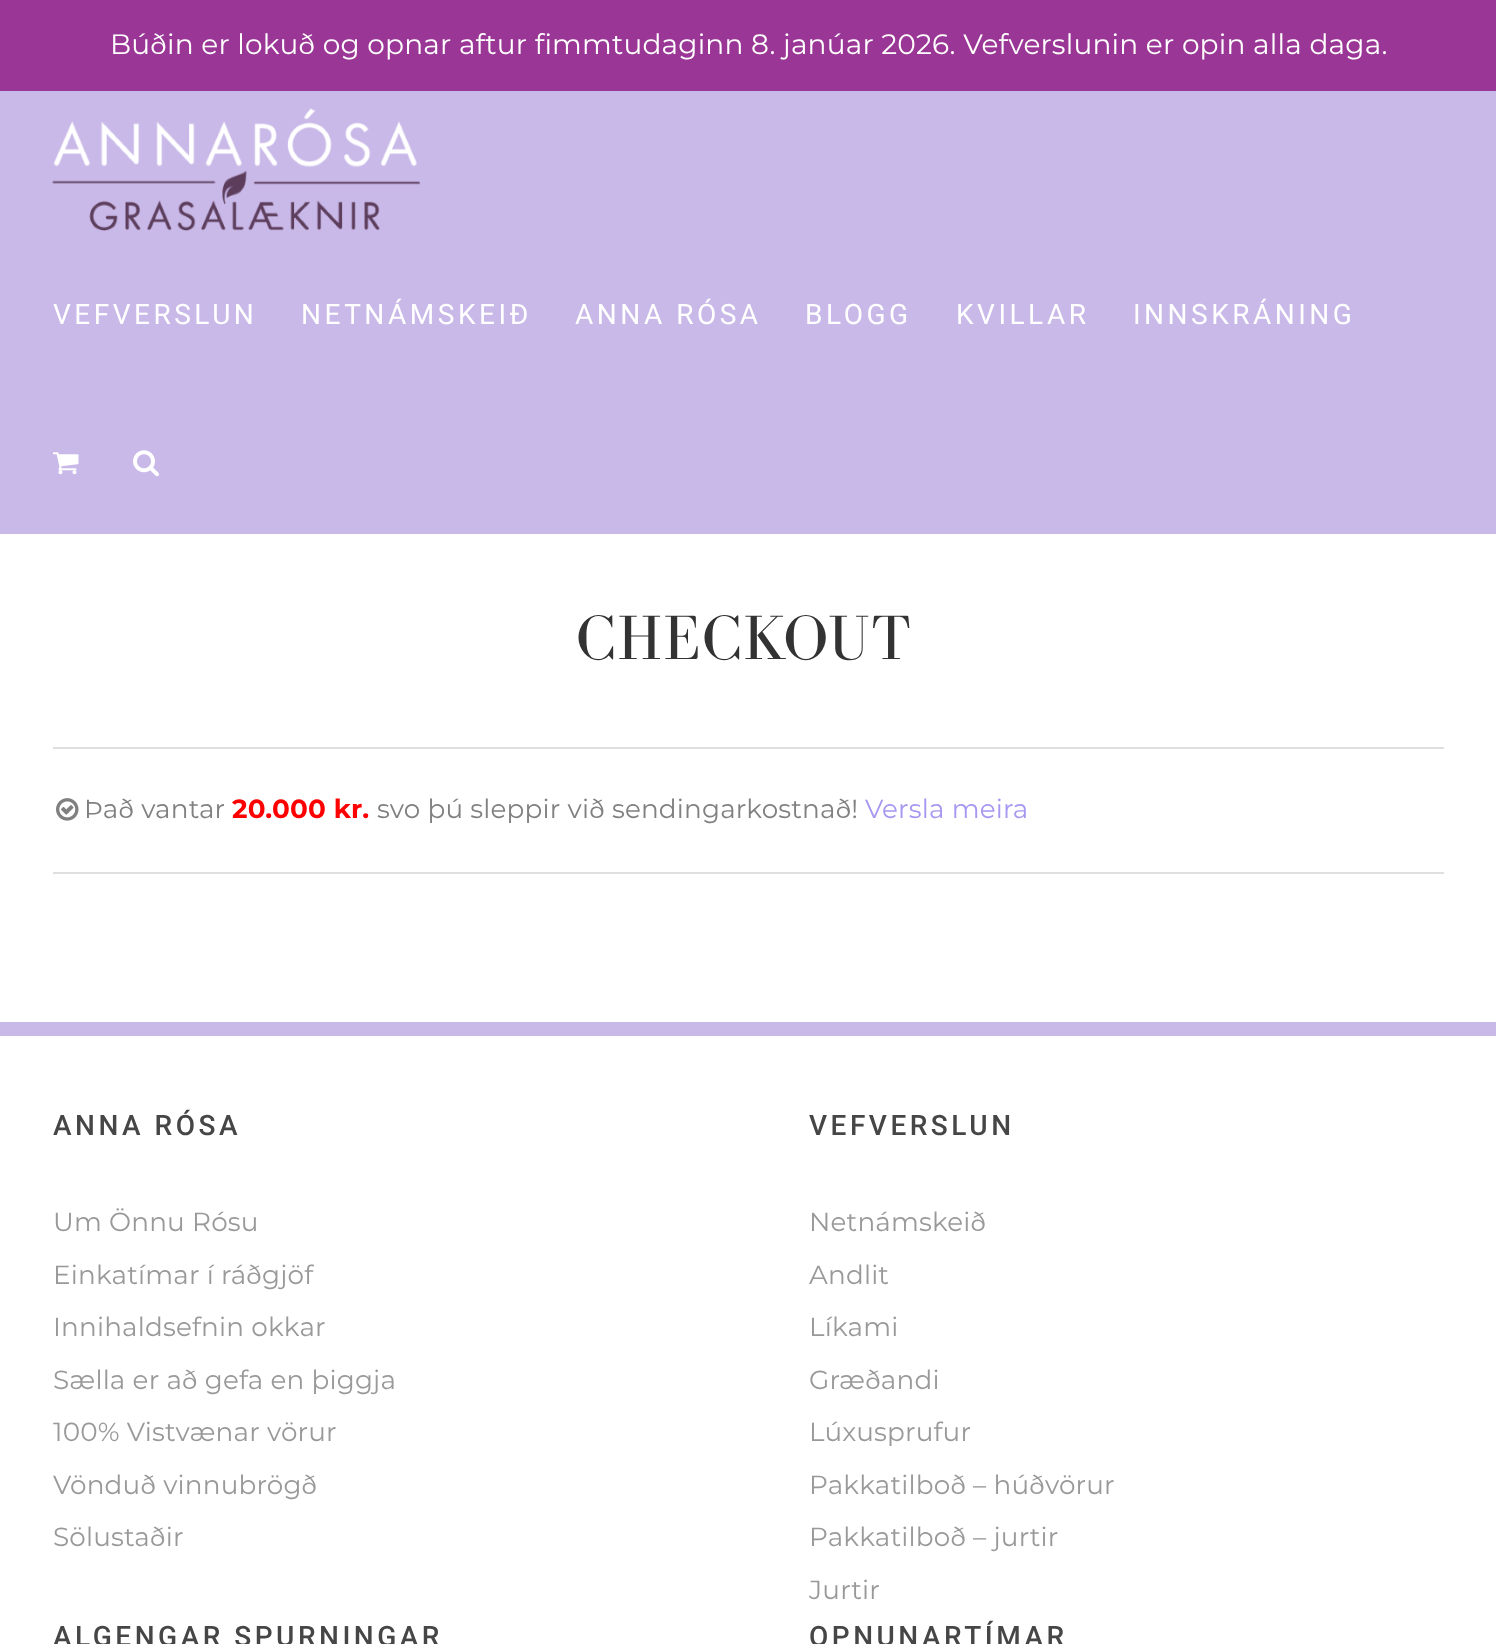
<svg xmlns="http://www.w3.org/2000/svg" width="1496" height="1644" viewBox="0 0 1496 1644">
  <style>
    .t1 { font: 28px Montserrat; letter-spacing: 0.18px; fill: #fff; }
    .t2 { font: 28px Roboto; letter-spacing: 3.5px; fill: #fff; }
    .t3 { font: 64.5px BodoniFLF; letter-spacing: 1.75px; fill: #333; }
    .t4 { font: 26.25px Montserrat; letter-spacing: 0.18px; fill: #808080; }
    .t5 { font: bold 26.25px Montserrat; letter-spacing: 0.18px; fill: #f00; }
    .t6 { font: 26.25px Montserrat; letter-spacing: 0.18px; fill: #a897f1; }
    .t7 { font: 500 28px Roboto; letter-spacing: 3.5px; fill: #464646; }
    .t8 { font: 26.25px Montserrat; letter-spacing: 0.18px; fill: #999; }
  </style>
  <rect width="100%" height="100%" fill="#fff"/>
  <rect x="0" y="0" width="1496" height="91" fill="#9a3695"/>
  <text x="110" y="54" class="t1">Búðin er lokuð og opnar aftur fimmtudaginn 8. janúar 2026. Vefverslunin er opin alla daga.</text>
  <rect x="0" y="91" width="1496" height="443" fill="#c9b9e8"/>
  <image x="52" y="108" width="368" height="123" href="images/1.png"/>
  <text x="53" y="324" class="t2">VEFVERSLUN</text>
  <text x="301" y="324" class="t2">NETNÁMSKEIÐ</text>
  <text x="575" y="324" class="t2">ANNA RÓSA</text>
  <text x="805" y="324" class="t2">BLOGG</text>
  <text x="956" y="324" class="t2">KVILLAR</text>
  <text x="1133" y="324" class="t2">INNSKRÁNING</text>
  <image x="53" y="452" width="26" height="23" href="images/2.png"/>
  <image x="133" y="450" width="26" height="27" href="images/3.png"/>
  <text x="576" y="659" class="t3">CHECKOUT</text>
  <rect x="53" y="747" width="1391" height="2" fill="#e0dede"/>
  <rect x="53" y="872" width="1391" height="2" fill="#e0dede"/>
  <image x="56" y="798" width="23" height="23" href="images/4.png"/>
  <text x="84" y="818" class="t4">Það vantar</text>
  <text x="232" y="818" class="t5">20.000 kr.</text>
  <text x="377" y="818" class="t4">svo þú sleppir við sendingarkostnað!</text>
  <text x="865" y="818" class="t6">Versla meira</text>
  <rect x="0" y="1022" width="1496" height="14" fill="#c9b9e8"/>
  <text x="53" y="1135" class="t7">ANNA RÓSA</text>
  <text x="53" y="1231" class="t8">Um Önnu Rósu</text>
  <text x="53" y="1284" class="t8">Einkatímar í ráðgjöf</text>
  <text x="53" y="1336" class="t8">Innihaldsefnin okkar</text>
  <text x="53" y="1389" class="t8">Sælla er að gefa en þiggja</text>
  <text x="53" y="1441" class="t8">100% Vistvænar vörur</text>
  <text x="53" y="1494" class="t8">Vönduð vinnubrögð</text>
  <text x="53" y="1546" class="t8">Sölustaðir</text>
  <text x="809" y="1135" class="t7">VEFVERSLUN</text>
  <text x="809" y="1231" class="t8">Netnámskeið</text>
  <text x="809" y="1284" class="t8">Andlit</text>
  <text x="809" y="1336" class="t8">Líkami</text>
  <text x="809" y="1389" class="t8">Græðandi</text>
  <text x="809" y="1441" class="t8">Lúxusprufur</text>
  <text x="809" y="1494" class="t8">Pakkatilboð – húðvörur</text>
  <text x="809" y="1546" class="t8">Pakkatilboð – jurtir</text>
  <text x="809" y="1599" class="t8">Jurtir</text>
  <text x="53" y="1646" class="t7">ALGENGAR SPURNINGAR</text>
  <text x="809" y="1646" class="t7">OPNUNARTÍMAR</text>
</svg>
